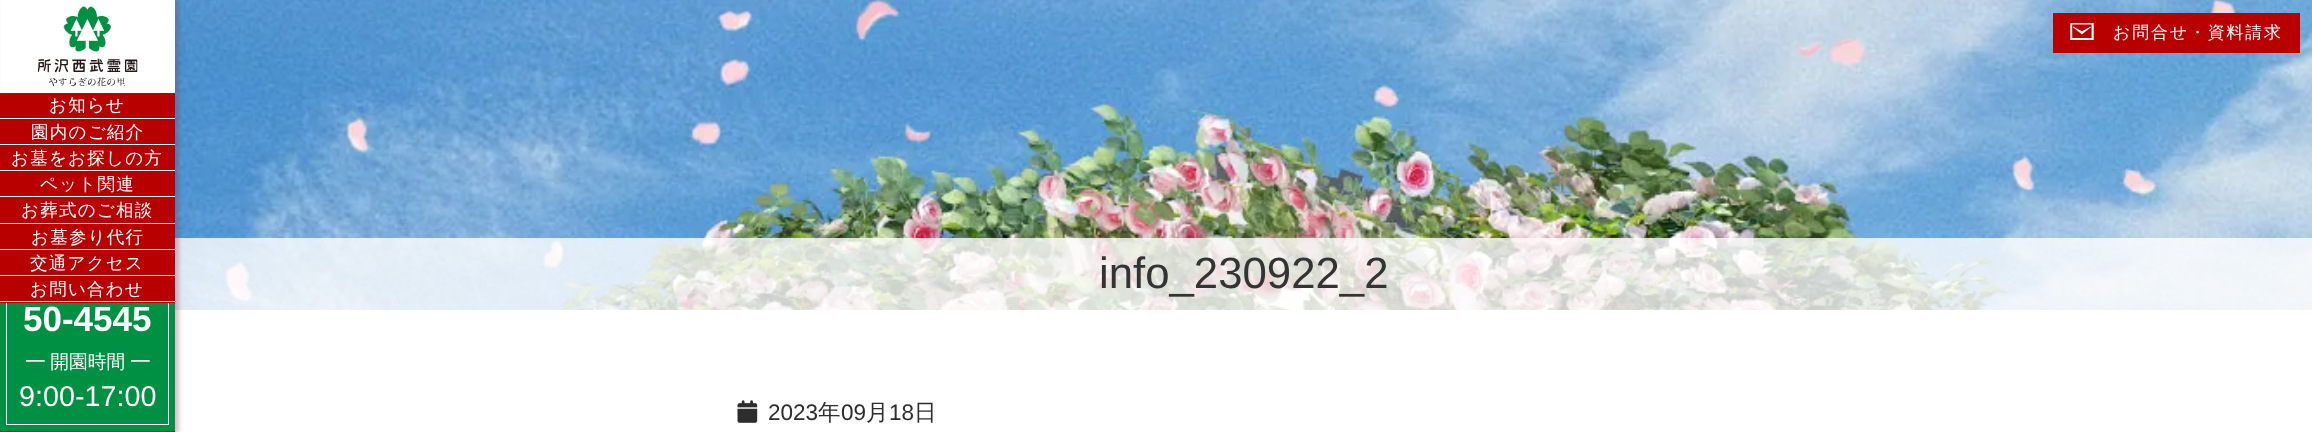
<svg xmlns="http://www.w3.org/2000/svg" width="2312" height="432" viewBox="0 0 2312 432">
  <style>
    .t1 { font: 500 16.9px WenQuanYi Zen Hei; letter-spacing: 1.9px; fill: #fff; }
    .t2 { font: 500 17.5px WenQuanYi Zen Hei; letter-spacing: 1.25px; fill: #fff; }
    .t3 { font: bold 35px Liberation Sans; fill: #fff; }
    .t4 { font: 500 18.75px WenQuanYi Zen Hei; fill: #fff; }
    .t5 { font: 28.75px Liberation Sans; fill: #fff; }
    .t6 { font: 43.75px Liberation Sans; fill: #333; }
    .t7 { font: 22.5px Liberation Sans; fill: #2d2d2d; }
    .t8 { font: 500 22.5px WenQuanYi Zen Hei; fill: #2d2d2d; }
  </style>
  <rect width="100%" height="100%" fill="#fff"/>
  <image x="175" y="0" width="2137" height="310" href="images/3.png"/>
  <rect x="2053" y="13" width="247" height="40" fill="#b80000"/>
  <image x="2070" y="23" width="24" height="17" href="images/1.png"/>
  <text x="2113" y="38" class="t1">お問合せ・資料請求</text>
  <rect x="175" y="238" width="2137" height="72" fill="#ffffffcc"/>
  <rect x="4" y="0" width="175" height="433" fill="#84304e4d" filter="blur(2px)"/>
  <rect x="0" y="93" width="175" height="339" fill="#b80000"/>
  <rect x="1" y="0" width="174" height="93" fill="#fff"/>
  <image x="38" y="6" width="100" height="80" href="images/2.png"/>
  <rect x="0" y="118" width="175" height="1" fill="#fff"/>
  <text x="49" y="111" class="t2">お知らせ</text>
  <rect x="0" y="144" width="175" height="1" fill="#fff"/>
  <text x="31" y="138" class="t2">園内のご紹介</text>
  <rect x="0" y="170" width="175" height="1" fill="#fff"/>
  <text x="11" y="164" class="t2">お墓をお探しの方</text>
  <rect x="0" y="196" width="175" height="1" fill="#fff"/>
  <text x="40" y="190" class="t2">ペット関連</text>
  <rect x="0" y="223" width="175" height="1" fill="#fff"/>
  <text x="21" y="216" class="t2">お葬式のご相談</text>
  <rect x="0" y="249" width="175" height="1" fill="#fff"/>
  <text x="31" y="243" class="t2">お墓参り代行</text>
  <rect x="0" y="303" width="175" height="128" fill="#009043"/>
  <rect x="6.5" y="260.5" width="162" height="164" fill="none" stroke="#fff"/>
  <rect x="6" y="260" width="163" height="15" fill="#b80000"/>
  <rect x="0" y="275" width="175" height="1" fill="#fff"/>
  <text x="30" y="269" class="t2">交通アクセス</text>
  <rect x="6" y="276" width="163" height="27" fill="#b80000"/>
  <rect x="0" y="301" width="175" height="1" fill="#fff"/>
  <text x="30" y="295" class="t2">お問い合わせ</text>
  <text x="23" y="331" class="t3">50-4545</text>
  <text x="26" y="368" class="t4">━ 開園時間 ━</text>
  <text x="19" y="406" class="t5">9:00-17:00</text>
  <text x="1099" y="288" class="t6">info_230922_2</text>
  <image x="737" y="400" width="21" height="23" href="images/4.png"/>
  <text x="768" y="420" class="t7">2023</text>
  <text x="818" y="420" class="t8">年</text>
  <text x="841" y="420" class="t7">09</text>
  <text x="866" y="420" class="t8">月</text>
  <text x="889" y="420" class="t7">18</text>
  <text x="914" y="420" class="t8">日</text>
</svg>
